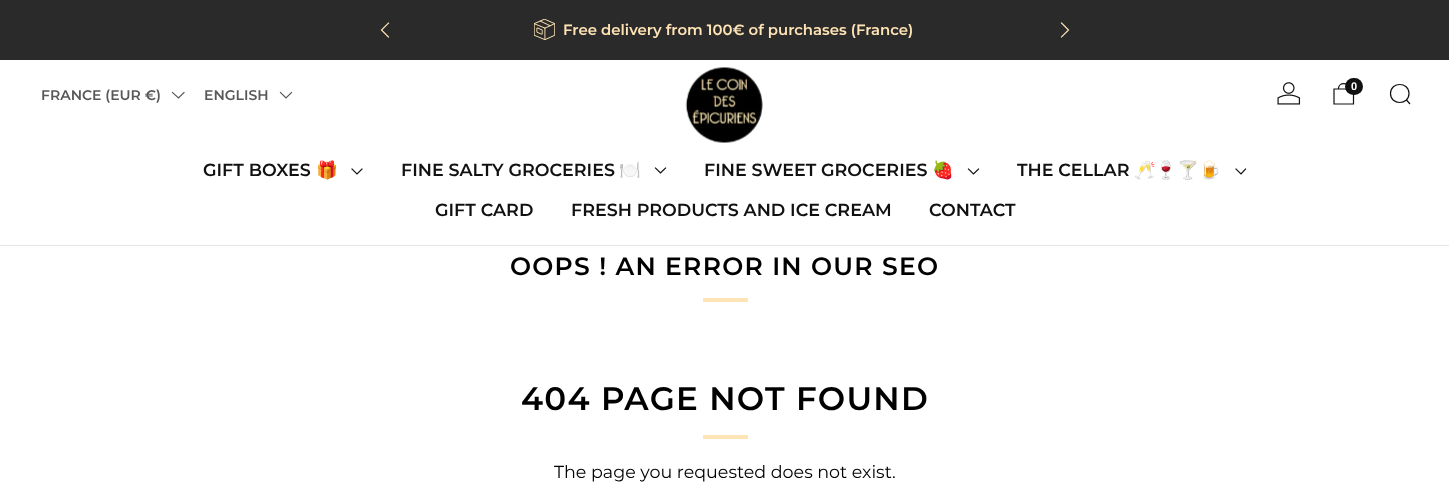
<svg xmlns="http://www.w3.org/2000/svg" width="1449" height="482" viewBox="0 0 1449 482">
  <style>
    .t1 { font: 600 14.9px Montserrat; fill: #ffe4b5; }
    .t2 { font: bold 11px Liberation Sans; fill: #fff; }
    .t3 { font: 600 14px Montserrat; fill: #585858; }
    .t4 { font: 600 17.5px Montserrat; fill: #111; }
    .t5 { font: bold 17.5px Noto Color Emoji; fill: #111; }
    .t6 { font: 600 25px Montserrat; letter-spacing: 1.25px; fill: #000; }
    .t7 { font: 600 32.5px Montserrat; letter-spacing: 1.25px; fill: #000; }
    .t8 { font: 100 17.5px Montserrat; fill: #000; }
  </style>
  <rect width="100%" height="100%" fill="#fff"/>
  <rect x="0" y="0" width="1449" height="60" fill="#2a2a2a"/>
  <path d="M388.5 37L381.5 30L388.5 23" fill="none" stroke="#ffe4b5" stroke-width="1.2" stroke-linecap="square"/>
  <image x="534" y="19" width="21" height="21" href="images/1.png"/>
  <text x="563" y="35" class="t1">Free delivery from 100€ of purchases (France)</text>
  <path d="M1061.5 23L1068.5 30L1061.5 37" fill="none" stroke="#ffe4b5" stroke-width="1.2" stroke-linecap="square"/>
  <rect x="0" y="245" width="1449" height="1" fill="#e7e7e7"/>
  <image x="685" y="67" width="78" height="76" href="images/2.png"/>
  <image x="1277" y="82" width="24" height="23" href="images/3.png"/>
  <path d="M1349 88.5C1349 82 1338.5 82 1338.5 88.5M1334 89H1353.5V104H1334Z" fill="none" stroke="#111" stroke-width="1.2"/>
  <rect x="1345" y="78" width="18" height="17" rx="8.5" fill="#111"/>
  <text x="1351" y="90" class="t2">0</text>
  <path d="M1406.5 100L1410 104M1409 93.5C1409 105.5 1390.5 105.5 1390.5 93.5C1390.5 81.5 1409 81.5 1409 93.5Z" fill="none" stroke="#111" stroke-width="1.2"/>
  <text x="41" y="100" class="t3">FRANCE (EUR €)</text>
  <path d="M184 92.5L178.5 98L172.5 92.5" fill="none" stroke="#585858" stroke-width="1.2" stroke-linecap="square"/>
  <text x="204" y="100" class="t3">ENGLISH</text>
  <path d="M291.5 92.5L286 98L280.5 92.5" fill="none" stroke="#585858" stroke-width="1.2" stroke-linecap="square"/>
  <text x="203" y="176" class="t4">GIFT BOXES</text>
  <text x="316" y="176" class="t5">🎁</text>
  <path d="M362 169L357 174L352 169" fill="none" stroke="#111" stroke-width="1.2" stroke-linecap="square"/>
  <text x="401" y="176" class="t4">FINE SALTY GROCERIES</text>
  <text x="619" y="176" class="t5">🍽️</text>
  <path d="M665.5 168L660.5 173L655.5 168" fill="none" stroke="#111" stroke-width="1.2" stroke-linecap="square"/>
  <text x="704" y="176" class="t4">FINE SWEET GROCERIES</text>
  <text x="932" y="176" class="t5">🍓</text>
  <path d="M978.5 169L973.5 174L968.5 169" fill="none" stroke="#111" stroke-width="1.2" stroke-linecap="square"/>
  <text x="1017" y="176" class="t4">THE CELLAR</text>
  <text x="1134" y="176" class="t5">🥂🍷🍸🍺</text>
  <path d="M1245.5 169L1241 174L1236 169" fill="none" stroke="#111" stroke-width="1.2" stroke-linecap="square"/>
  <text x="435" y="216" class="t4">GIFT CARD</text>
  <text x="571" y="216" class="t4">FRESH PRODUCTS AND ICE CREAM</text>
  <text x="929" y="216" class="t4">CONTACT</text>
  <text x="510" y="275" class="t6">OOPS ! AN ERROR IN OUR SEO</text>
  <rect x="703" y="298" width="45" height="4" fill="#ffe4b5"/>
  <text x="521" y="410" class="t7">404 PAGE NOT FOUND</text>
  <rect x="703" y="435" width="45" height="4" fill="#ffe4b5"/>
  <text x="554" y="478" class="t8">The page you requested does not exist.</text>
</svg>
